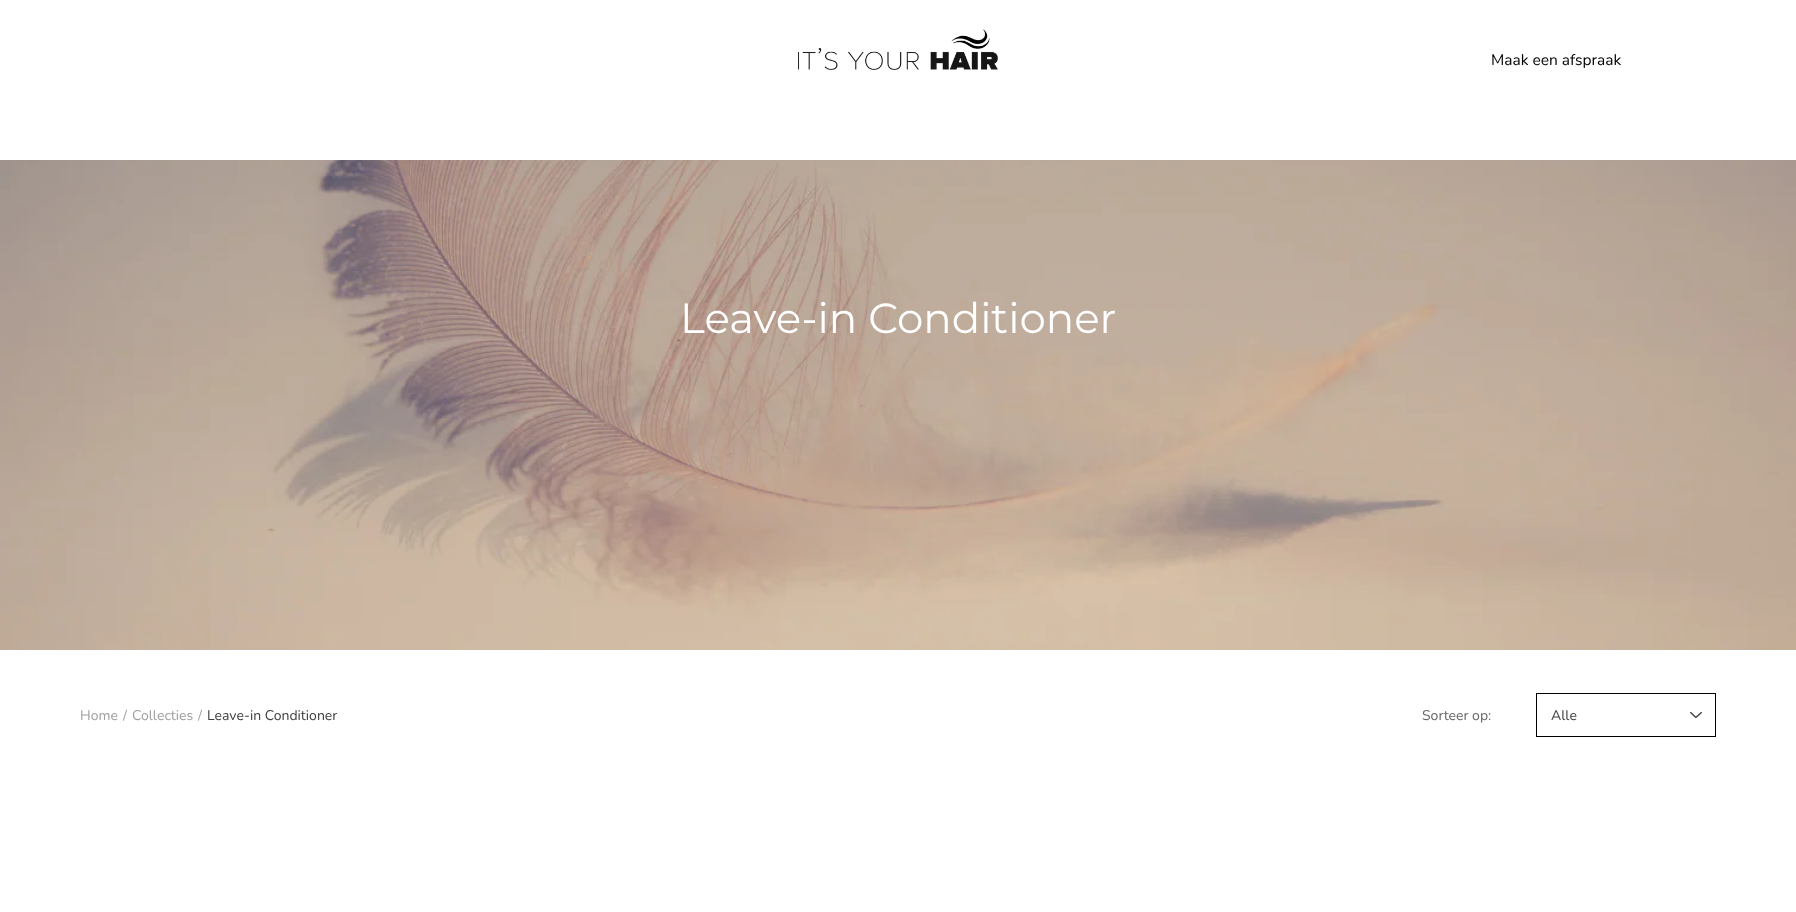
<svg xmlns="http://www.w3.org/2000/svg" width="1796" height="912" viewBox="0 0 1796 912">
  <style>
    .t1 { font: 15.5px Nunito; fill: #000; }
    .t2 { font: 42px Montserrat; fill: #fff; }
    .t3 { font: 14px Nunito; fill: #a0a0a0; }
    .t4 { font: 14px Nunito; fill: #404040; }
    .t5 { font: 14px Nunito; fill: #666; }
  </style>
  <rect width="100%" height="100%" fill="#fff"/>
  <image x="798" y="29" width="200" height="41" href="images/1.png"/>
  <text x="1491" y="65" class="t1">Maak een afspraak</text>
  <image x="0" y="160" width="1796" height="490" href="images/2.png"/>
  <text x="680" y="333" class="t2">Leave-in Conditioner</text>
  <text x="80" y="720" class="t3">Home</text>
  <text x="123" y="720" class="t3">/</text>
  <text x="132" y="720" class="t3">Collecties</text>
  <text x="198" y="720" class="t3">/</text>
  <text x="207" y="720" class="t4">Leave-in Conditioner</text>
  <text x="1422" y="720" class="t5">Sorteer op:</text>
  <rect x="1536.5" y="693.5" width="179" height="43" fill="none" stroke="#000"/>
  <text x="1551" y="720" class="t4">Alle</text>
  <image x="1690" y="711" width="12" height="8" href="images/3.png"/>
</svg>
